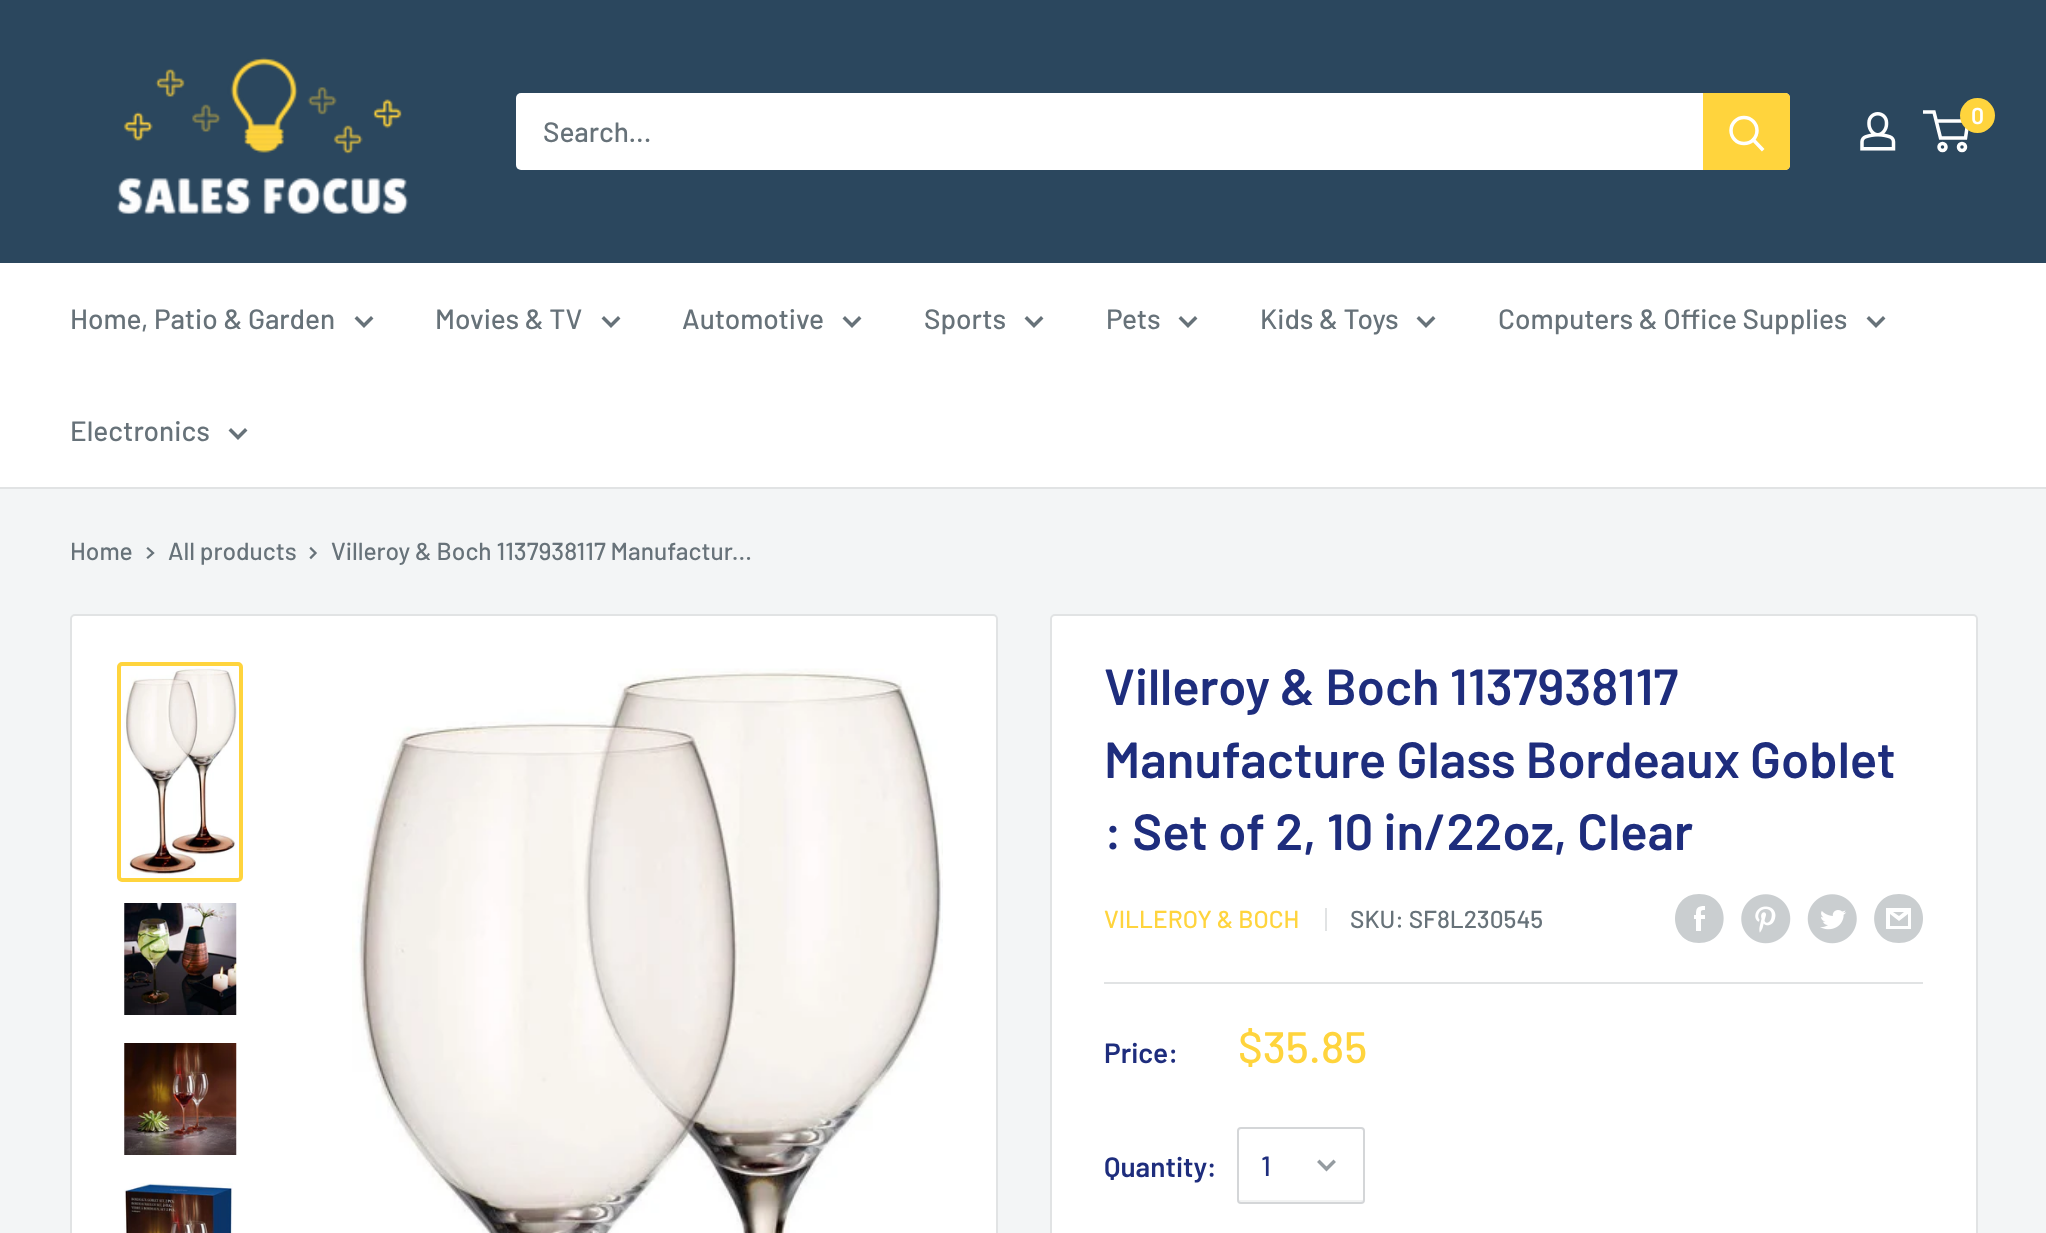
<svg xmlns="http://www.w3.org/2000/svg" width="2046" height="1233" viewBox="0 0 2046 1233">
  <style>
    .t1 { font: 600 23px Barlow; fill: #fff; }
    .t2 { font: 500 28px Barlow; fill: #677279; }
    .t3 { font: 500 24.5px Barlow; fill: #677279; }
    .t4 { font: 600 50.75px Barlow; fill: #1e2d7d; }
    .t5 { font: 500 24.5px Barlow; fill: #ffd43d; }
    .t6 { font: 600 28px Barlow; fill: #1e2d7d; }
    .t7 { font: 500 44px Barlow; fill: #ffd43d; }
    .t8 { font: 500 28px Barlow; fill: #1e2d7d; }
  </style>
  <rect width="100%" height="100%" fill="#f3f5f6"/>
  <rect x="0" y="0" width="2046" height="263" fill="#2b475e"/>
  <image x="117" y="57" width="292" height="158" href="images/1.png"/>
  <image x="1860" y="112" width="36" height="39" href="images/2.png"/>
  <circle cx="1942.5" cy="147" r="3.5" fill="none" stroke="#fff" stroke-width="3.5"/>
  <circle cx="1962" cy="147" r="3.5" fill="none" stroke="#fff" stroke-width="3.5"/>
  <path d="M1936 121H1968L1965.5 138H1940.5L1934 112H1923" fill="none" stroke="#fff" stroke-width="3.5"/>
  <circle cx="1977.5" cy="115.5" r="17.5" fill="#ffd43d"/>
  <text x="1971" y="124" class="t1">0</text>
  <rect x="516" y="93" width="1274" height="77" rx="5" fill="#fff"/>
  <text x="543" y="142" class="t2">Search...</text>
  <path d="M1703 93H1785C1788 93 1790 95 1790 98V165C1790 168 1788 170 1785 170H1703Z" fill="#ffd43d"/>
  <path d="M1762 149L1753.5 140" fill="none" stroke="#fff" stroke-width="3.5" stroke-linecap="square"/>
  <circle cx="1744" cy="130.5" r="13" fill="none" stroke="#fff" stroke-width="3.5"/>
  <rect x="0" y="263" width="2046" height="224" fill="#fff"/>
  <rect x="0" y="487" width="2046" height="2" fill="#e1e3e4"/>
  <text x="70" y="329" class="t2">Home, Patio &amp; Garden</text>
  <path d="M371 318.5L364 325.5L357 318.5" fill="none" stroke="#677279" stroke-width="3.5" stroke-linecap="square"/>
  <text x="435" y="329" class="t2">Movies &amp; TV</text>
  <path d="M618 318.5L611 325.5L604 318.5" fill="none" stroke="#677279" stroke-width="3.5" stroke-linecap="square"/>
  <text x="682" y="329" class="t2">Automotive</text>
  <path d="M859 318.5L852 325.5L845 318.5" fill="none" stroke="#677279" stroke-width="3.5" stroke-linecap="square"/>
  <text x="924" y="329" class="t2">Sports</text>
  <path d="M1041 318.5L1034 325.5L1027 318.5" fill="none" stroke="#677279" stroke-width="3.5" stroke-linecap="square"/>
  <text x="1106" y="329" class="t2">Pets</text>
  <path d="M1195 318.5L1188 325.5L1181 318.5" fill="none" stroke="#677279" stroke-width="3.5" stroke-linecap="square"/>
  <text x="1260" y="329" class="t2">Kids &amp; Toys</text>
  <path d="M1433 318.5L1426 325.5L1419 318.5" fill="none" stroke="#677279" stroke-width="3.5" stroke-linecap="square"/>
  <text x="1498" y="329" class="t2">Computers &amp; Office Supplies</text>
  <path d="M1883 318.5L1876 325.5L1869 318.5" fill="none" stroke="#677279" stroke-width="3.5" stroke-linecap="square"/>
  <text x="70" y="441" class="t2">Electronics</text>
  <path d="M245 430.5L238 437.5L231 430.5" fill="none" stroke="#677279" stroke-width="3.5" stroke-linecap="square"/>
  <text x="70" y="560" class="t3">Home</text>
  <path d="M148 548.5L153 553L148 557.5" fill="none" stroke="#677279" stroke-width="2.3" stroke-linecap="square"/>
  <text x="168" y="560" class="t3">All products</text>
  <path d="M311 548.5L315.5 553L311 557.5" fill="none" stroke="#677279" stroke-width="2.3" stroke-linecap="square"/>
  <text x="331" y="560" class="t3">Villeroy &amp; Boch 1137938117 Manufactur...</text>
  <rect x="71" y="615" width="926" height="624" rx="4" fill="#fff" stroke="#e1e3e4" stroke-width="2"/>
  <rect x="119" y="664" width="122" height="216" rx="3" fill="none" stroke="#ffd43d" stroke-width="4"/>
  <image x="124" y="668" width="113" height="207" href="images/3.png"/>
  <image x="124" y="903" width="113" height="112" href="images/4.png"/>
  <image x="124" y="1043" width="113" height="112" href="images/5.png"/>
  <image x="124" y="1183" width="109" height="50" href="images/6.png"/>
  <image x="352" y="668" width="591" height="565" href="images/7.png"/>
  <rect x="1051" y="615" width="926" height="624" rx="4" fill="#fff" stroke="#e1e3e4" stroke-width="2"/>
  <text x="1104" y="705" class="t4">Villeroy &amp; Boch 1137938117</text>
  <text x="1104" y="778" class="t4">Manufacture Glass Bordeaux Goblet</text>
  <text x="1104" y="850" class="t4">: Set of 2, 10 in/22oz, Clear</text>
  <text x="1104" y="928" class="t5">VILLEROY &amp; BOCH</text>
  <rect x="1325" y="908" width="2" height="23" fill="#e1e3e4"/>
  <text x="1350" y="928" class="t3">SKU: SF8L230545</text>
  <path d="M1699 943C1667 943 1667 894 1699 894C1732 894 1732 943 1699 943ZM1705 915H1701C1701 911 1700 910 1705 910V906C1697 906 1696 908 1696 915H1694V919H1696V931H1701V919H1705Z" fill="#caced0" fill-rule="evenodd"/>
  <image x="1741" y="894" width="50" height="50" href="images/8.png"/>
  <image x="1807" y="894" width="50" height="50" href="images/9.png"/>
  <path d="M1899 943C1866 943 1866 894 1899 894C1931 894 1931 943 1899 943ZM1893 912H1904L1899 916ZM1908 914V926H1890V914L1899 921ZM1911 908H1886V929H1911Z" fill="#caced0"/>
  <rect x="1104" y="982" width="819" height="2" fill="#e1e3e4"/>
  <text x="1104" y="1063" class="t6">Price:</text>
  <text x="1238" y="1063" class="t7">$35.85</text>
  <text x="1104" y="1177" class="t6">Quantity:</text>
  <path d="M1239 1199C1239 1200 1239 1201 1240 1202H1341C1347 1202 1363 1207 1363 1199C1363 1200 1362 1200 1362 1200H1241C1240 1200 1239 1200 1239 1199Z" fill="#f2f3f3"/>
  <rect x="1238" y="1128" width="126" height="75" rx="3" fill="none" stroke="#d4d6d8" stroke-width="2"/>
  <text x="1261" y="1176" class="t8">1</text>
  <path d="M1333.5 1162L1326.5 1169L1319.5 1162" fill="none" stroke="#959ca1" stroke-width="3.5" stroke-linecap="square"/>
</svg>
